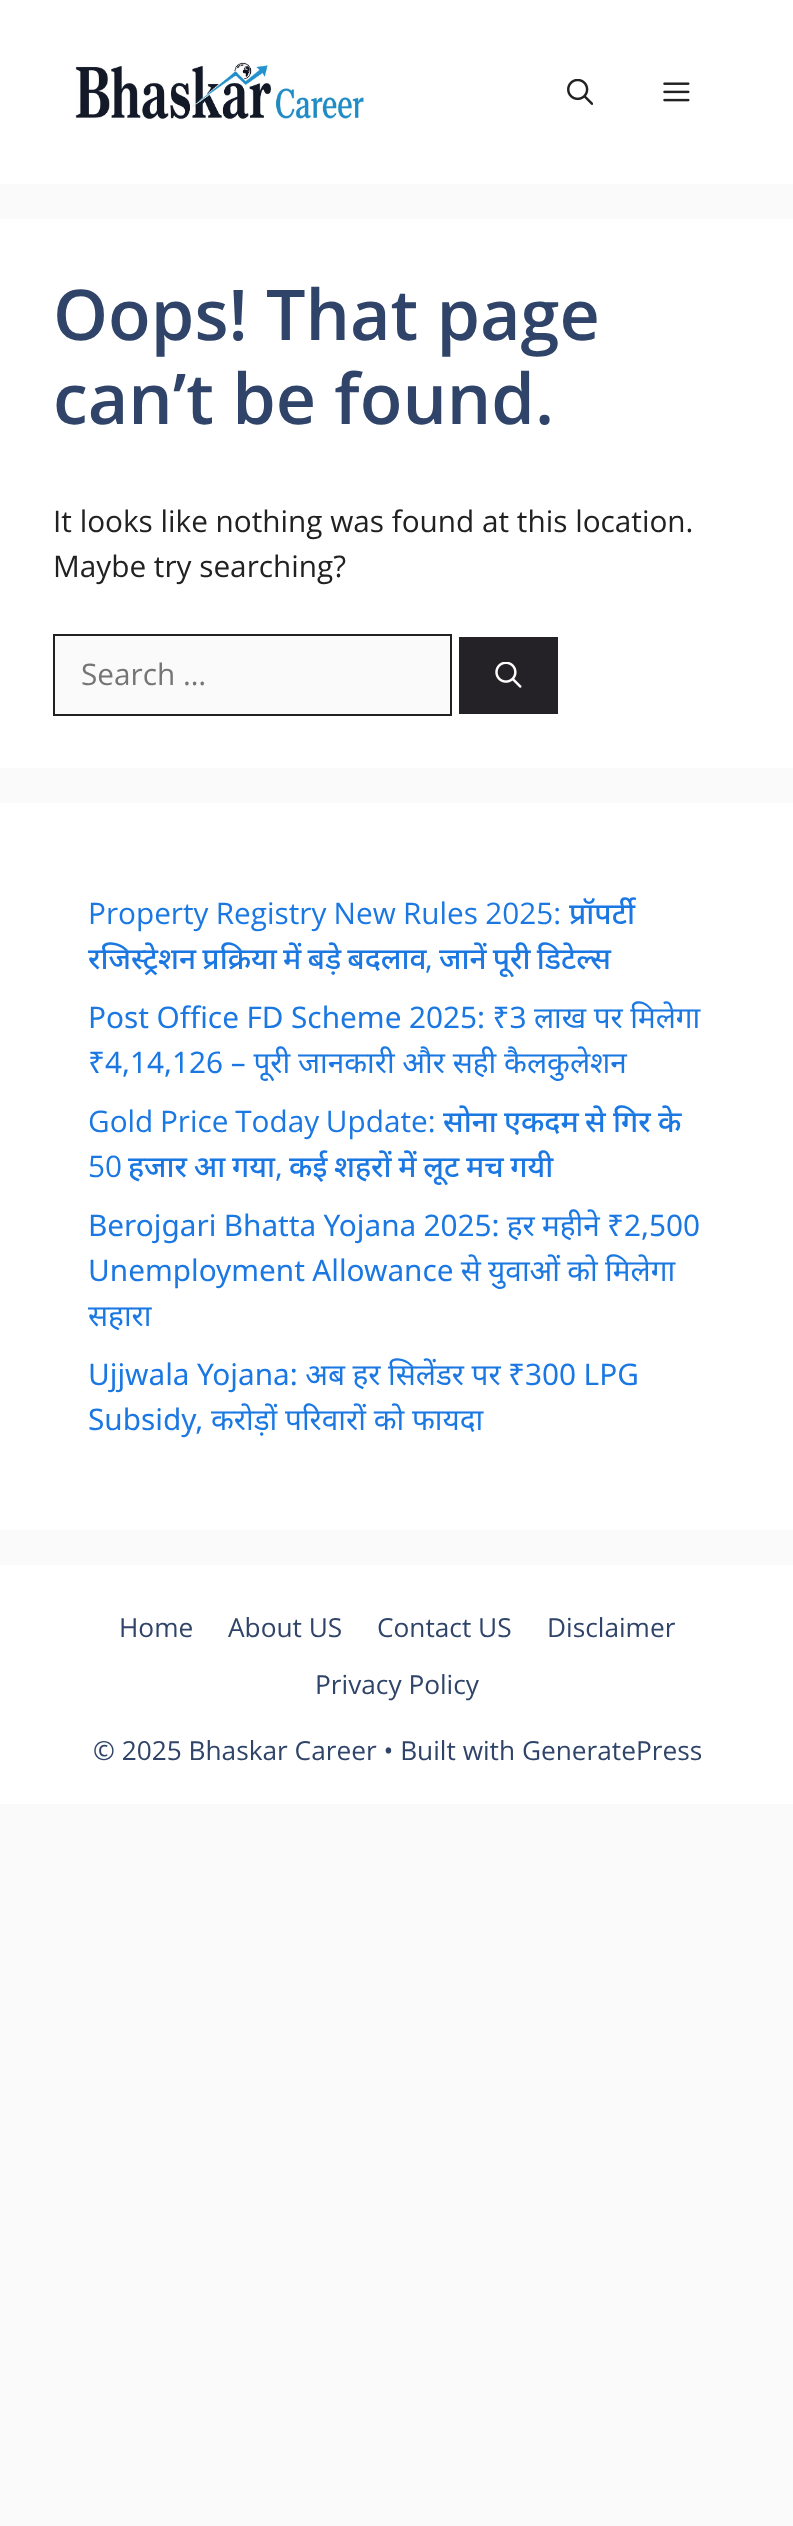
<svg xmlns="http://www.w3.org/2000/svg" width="793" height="2526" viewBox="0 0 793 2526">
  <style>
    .t1 { font: 600 70px Open Sans; fill: #2f4468; }
    .t2 { font: 29.75px Open Sans; fill: #212121; }
    .t3 { font: 29.75px Open Sans; fill: #757575; }
    .t4 { font: 29.75px Open Sans; fill: #1b78e2; }
    .t5 { font: 500 29.75px Noto Sans; fill: #1b78e2; }
    .t6 { font: 29.75px Noto Sans; fill: #1b78e2; }
    .t7 { font: 26.25px Open Sans; fill: #2f4468; }
  </style>
  <rect width="100%" height="100%" fill="#fafafa"/>
  <rect x="0" y="0" width="793" height="184" fill="#fff"/>
  <image x="75" y="62" width="289" height="58" href="images/1.png"/>
  <image x="567" y="79" width="26" height="26" href="images/2.png"/>
  <image x="663" y="82" width="27" height="20" href="images/3.png"/>
  <rect x="0" y="219" width="793" height="549" fill="#fff"/>
  <text x="53" y="340" class="t1">Oops! That page</text>
  <text x="53" y="424" class="t1">can’t be found.</text>
  <text x="53" y="532" class="t2">It looks like nothing was found at this location.</text>
  <text x="53" y="577" class="t2">Maybe try searching?</text>
  <rect x="54" y="635" width="397" height="80" fill="#fafafa" stroke="#212121" stroke-width="2"/>
  <text x="81" y="685" class="t3">Search …</text>
  <rect x="459" y="637" width="99" height="77" fill="#242226"/>
  <image x="495" y="662" width="27" height="26" href="images/4.png"/>
  <rect x="0" y="803" width="793" height="727" fill="#fff"/>
  <text x="88" y="924" word-spacing="-0.5" class="t4">Property Registry New Rules 2025:</text>
  <text x="569" y="924" class="t5">प्रॉपर्टी</text>
  <text x="88" y="969" word-spacing="-1.5" class="t5">रजिस्ट्रेशन प्रक्रिया में बड़े बदलाव</text>
  <text x="425" y="969" class="t4">,</text>
  <text x="439" y="969" word-spacing="-1.5" class="t5">जानें पूरी डिटेल्स</text>
  <text x="88" y="1028" word-spacing="-0.25" class="t6">Post Office FD Scheme 2025: ₹3 लाख पर मिलेगा</text>
  <text x="88" y="1073" class="t6">₹4,14,126 – पूरी जानकारी और सही कैलकुलेशन</text>
  <text x="88" y="1132" word-spacing="-1" class="t4">Gold Price Today Update:</text>
  <text x="443" y="1132" class="t5">सोना</text>
  <text x="504" y="1132" class="t5">एकदम</text>
  <text x="585" y="1132" class="t5">से</text>
  <text x="613" y="1132" class="t5">गिर</text>
  <text x="658" y="1132" class="t5">के</text>
  <text x="88" y="1177" class="t4">50</text>
  <text x="128" y="1177" word-spacing="-1" class="t5">हजार आ गया</text>
  <text x="275" y="1177" class="t4">,</text>
  <text x="289" y="1177" word-spacing="-1" class="t5">कई शहरों में लूट मच गयी</text>
  <text x="88" y="1236" word-spacing="-0.5" class="t6">Berojgari Bhatta Yojana 2025: हर महीने ₹2,500</text>
  <text x="88" y="1281" word-spacing="-0.5" class="t6">Unemployment Allowance से युवाओं को मिलेगा</text>
  <text x="88" y="1326" class="t6">सहारा</text>
  <text x="88" y="1385" word-spacing="-0.25" class="t6">Ujjwala Yojana: अब हर सिलेंडर पर ₹300 LPG</text>
  <text x="88" y="1430" class="t6">Subsidy, करोड़ों परिवारों को फायदा</text>
  <rect x="0" y="1565" width="793" height="239" fill="#fff"/>
  <text x="119" y="1637" class="t7">Home</text>
  <text x="228" y="1637" class="t7">About US</text>
  <text x="377" y="1637" class="t7">Contact US</text>
  <text x="547" y="1637" class="t7">Disclaimer</text>
  <text x="315" y="1694" class="t7">Privacy Policy</text>
  <text x="93" y="1760" class="t7">© 2025 Bhaskar Career • Built with GeneratePress</text>
</svg>
